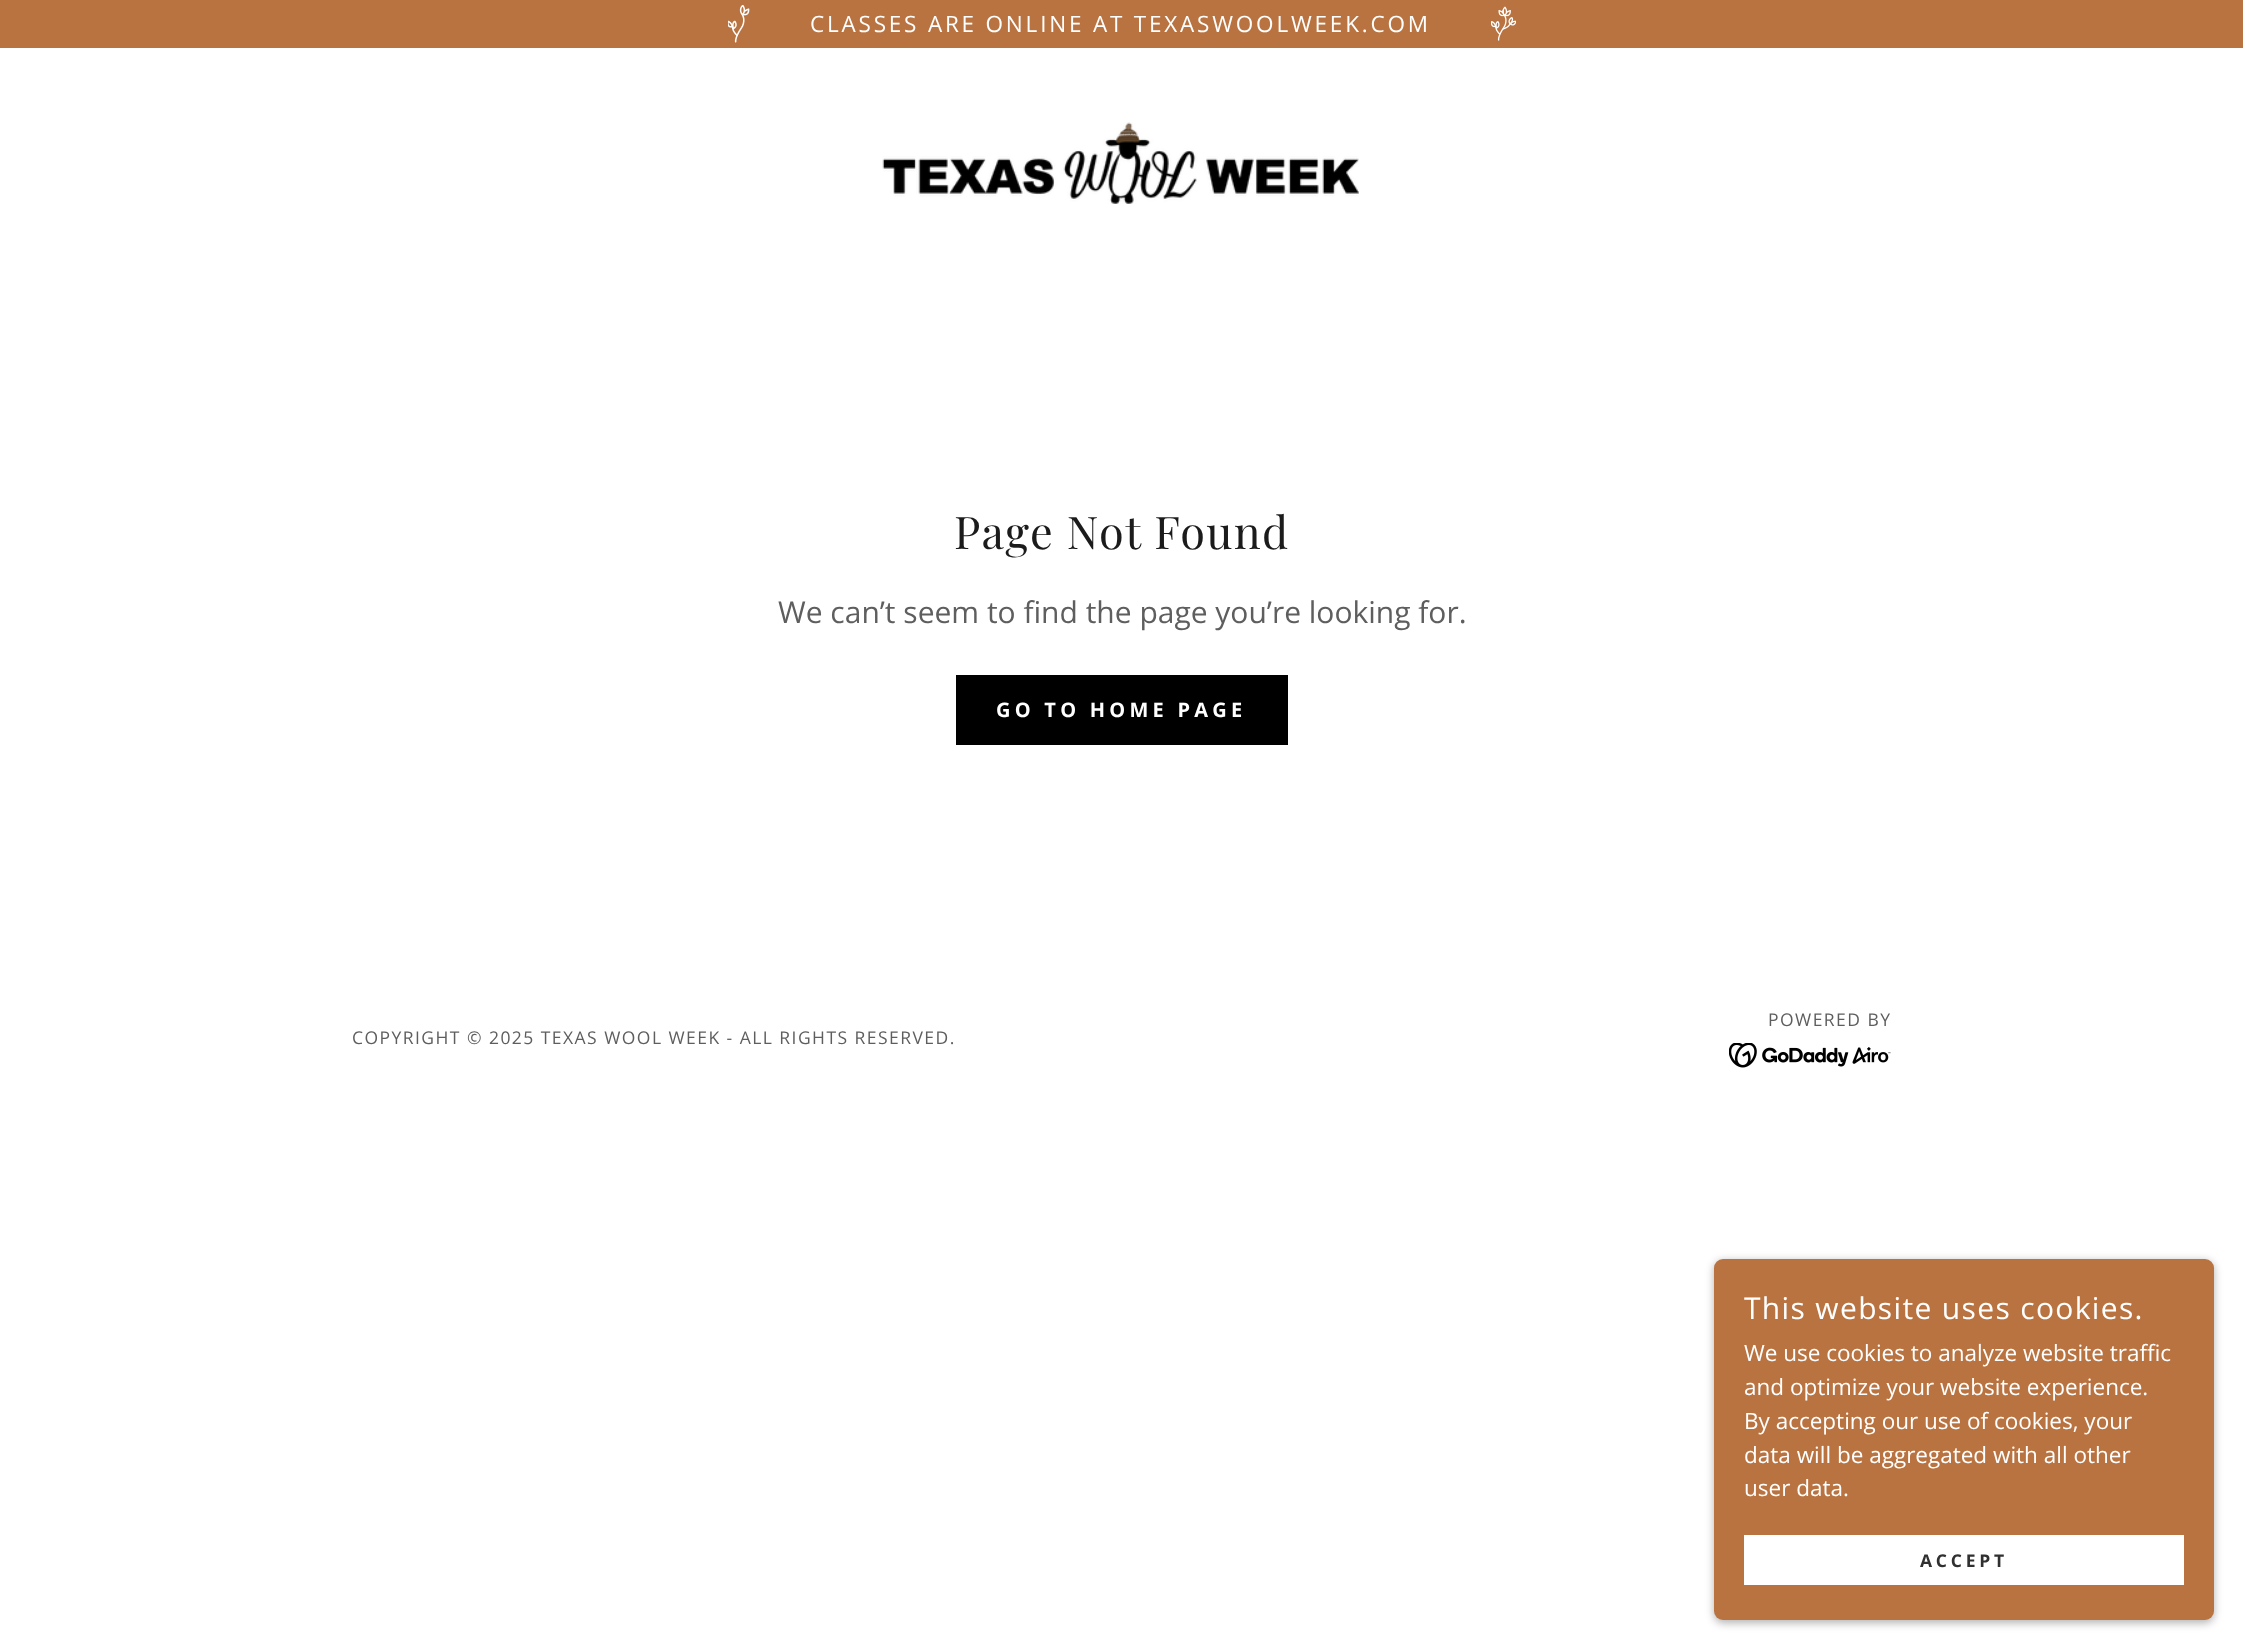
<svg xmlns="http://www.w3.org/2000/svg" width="2243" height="1650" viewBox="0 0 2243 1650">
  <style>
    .t1 { font: 22.5px Open Sans; letter-spacing: 2.8px; fill: #fff; }
    .t2 { font: 45px Playfair Display; letter-spacing: 1.4px; fill: #1b1b1b; }
    .t3 { font: 30px Open Sans; fill: #5e5e5e; }
    .t4 { font: bold 20px Open Sans; letter-spacing: 4.25px; fill: #fff; }
    .t5 { font: 17.5px Open Sans; letter-spacing: 1.45px; fill: #5e5e5e; }
    .t6 { font: 30px Open Sans; letter-spacing: 1.35px; fill: #fff; }
    .t7 { font: 22.5px Open Sans; fill: #fff; }
    .t8 { font: bold 17.5px Open Sans; letter-spacing: 3.75px; fill: #303030; }
  </style>
  <rect width="100%" height="100%" fill="#fff"/>
  <rect x="0" y="0" width="2243" height="48" fill="#b97340"/>
  <image x="728" y="5" width="22" height="38" href="images/1.png"/>
  <text x="810" y="32" class="t1">CLASSES ARE ONLINE AT TEXASWOOLWEEK.COM</text>
  <image x="1491" y="6" width="25" height="35" href="images/2.png"/>
  <image x="882" y="122" width="477" height="82" href="images/3.png"/>
  <text x="954" y="549" class="t2">Page Not Found</text>
  <text x="778" y="623" class="t3">We can’t seem to find the page you’re looking for.</text>
  <rect x="956" y="675" width="332" height="70" fill="#000"/>
  <text x="996" y="717" class="t4">GO TO HOME PAGE</text>
  <text x="1768" y="1026" class="t5">POWERED BY</text>
  <image x="1729" y="1043" width="162" height="25" href="images/4.png"/>
  <text x="352" y="1044" class="t5">COPYRIGHT © 2025 TEXAS WOOL WEEK - ALL RIGHTS RESERVED.</text>
  <rect x="1714" y="1261" width="500" height="362" rx="9" fill="#0000004d" filter="blur(4px)"/>
  <rect x="1714" y="1259" width="500" height="361" rx="9" fill="#b97340"/>
  <text x="1744" y="1319" class="t6">This website uses cookies.</text>
  <text x="1744" y="1361" class="t7">We use cookies to analyze website traffic</text>
  <text x="1744" y="1395" class="t7">and optimize your website experience.</text>
  <text x="1744" y="1429" class="t7">By accepting our use of cookies, your</text>
  <text x="1744" y="1463" class="t7">data will be aggregated with all other</text>
  <text x="1744" y="1496" class="t7">user data.</text>
  <rect x="1744" y="1535" width="440" height="50" fill="#fff"/>
  <text x="1920" y="1567" class="t8">ACCEPT</text>
</svg>
